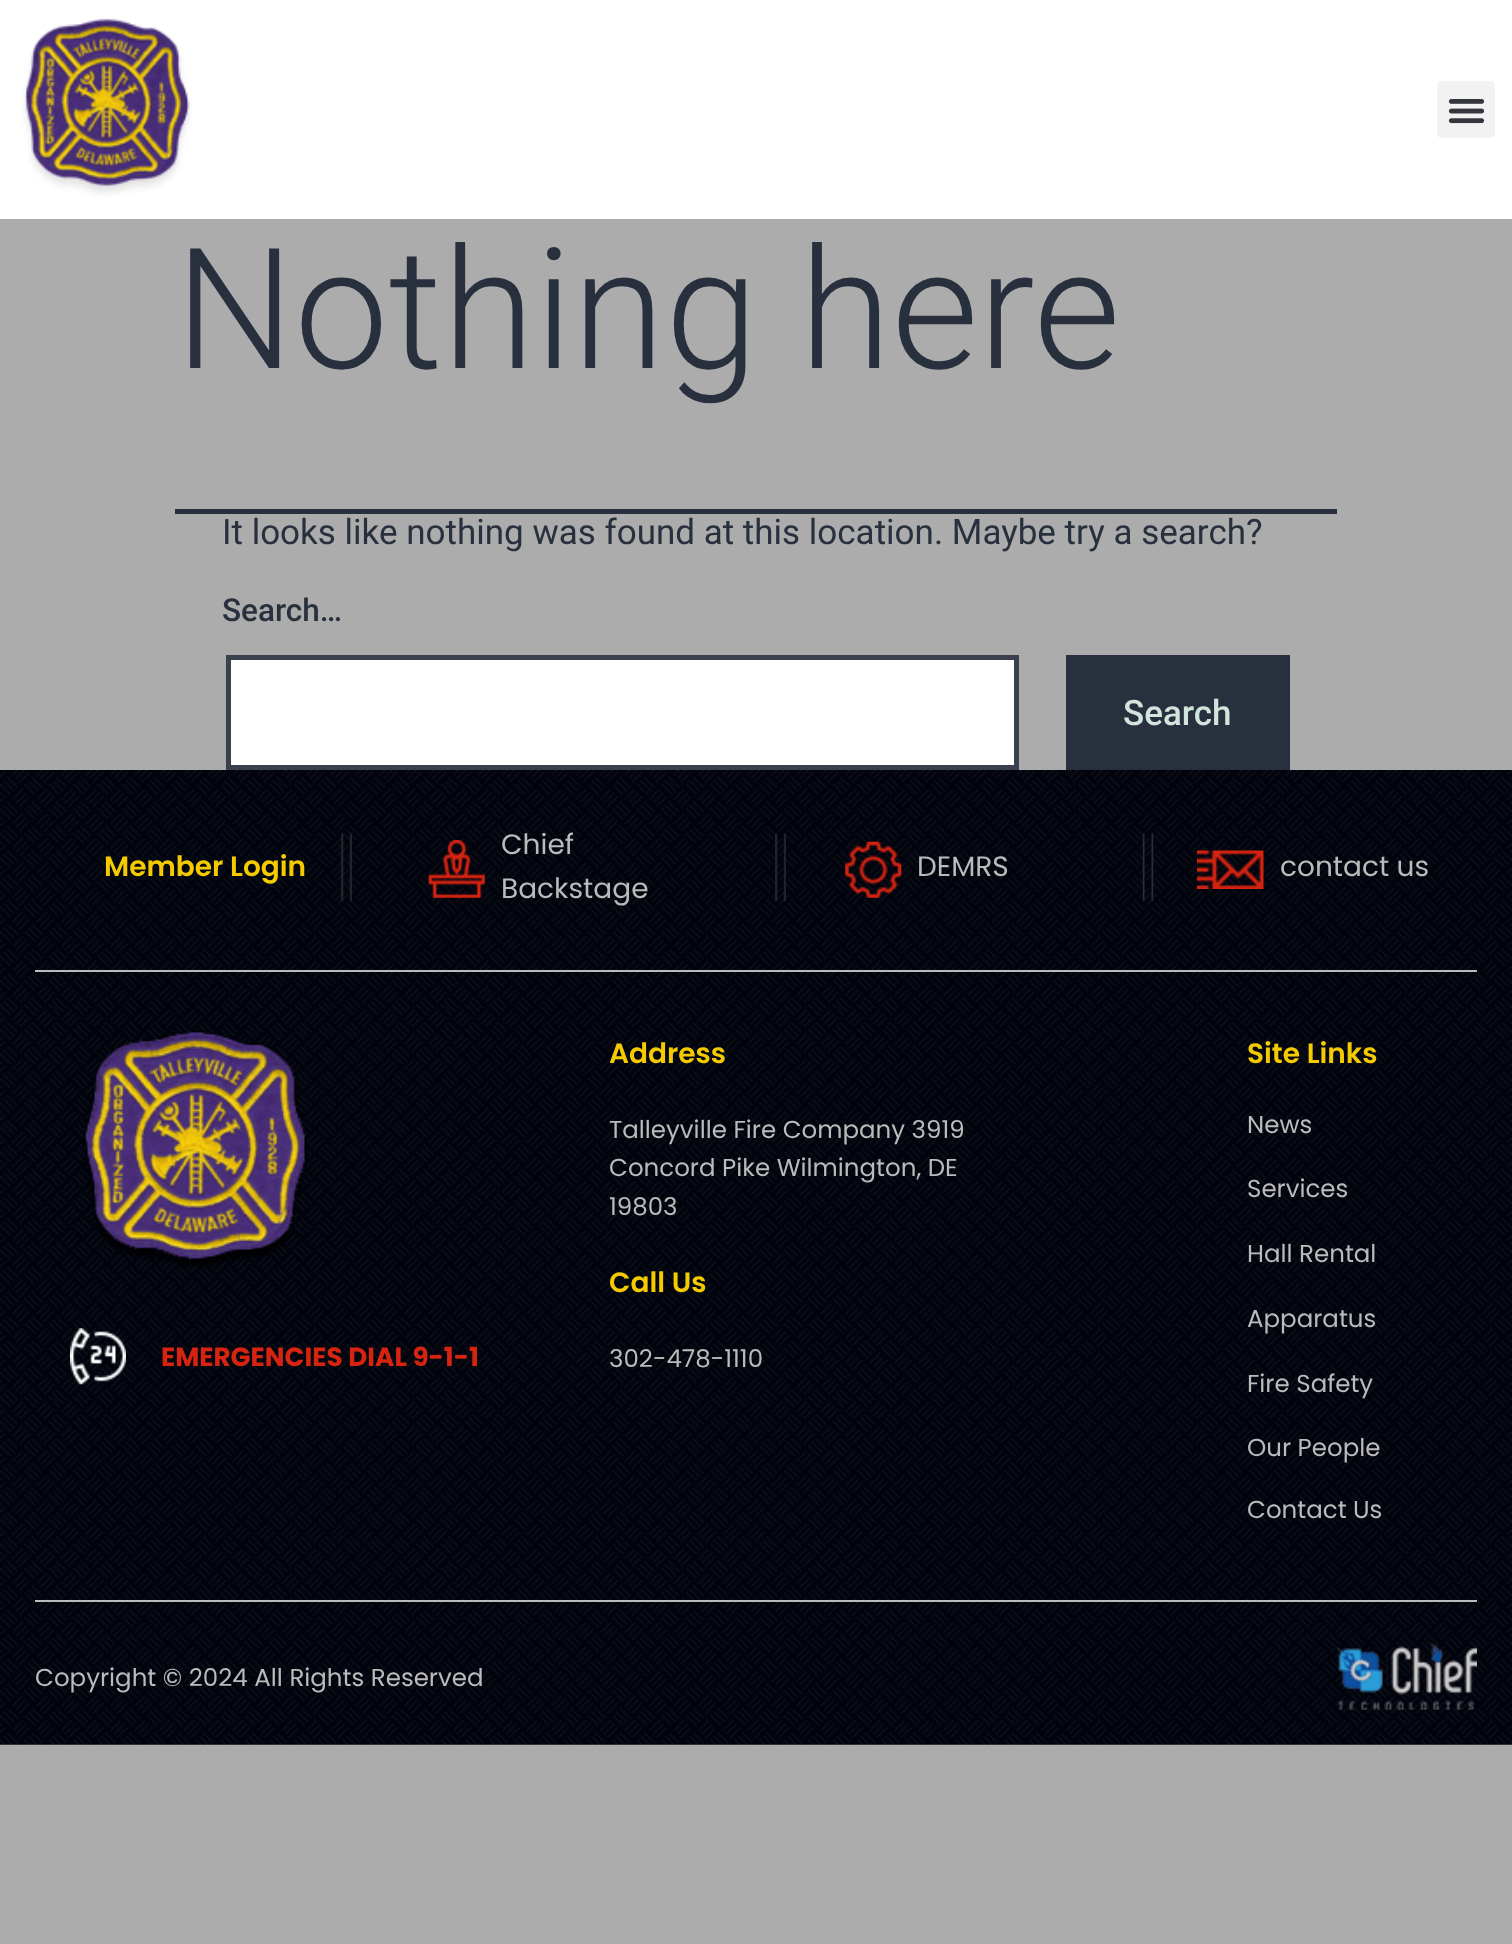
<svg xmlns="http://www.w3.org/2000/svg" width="1512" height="1944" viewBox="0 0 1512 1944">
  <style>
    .t1 { font: 300 168px Roboto; fill: #28303d; }
    .t2 { font: 35px Roboto; fill: #28303d; }
    .t3 { font: 500 31.5px Roboto; fill: #28303d; }
    .t4 { font: 500 35px Roboto; fill: #d1e4dd; }
    .t5 { font: 600 28px Poppins; fill: #f5cb00; }
    .t6 { font: 28px Poppins; fill: #bbb; }
    .t7 { font: bold 26.25px Poppins; fill: #d72411; }
    .t8 { font: 24.5px Poppins; fill: #bbb; }
  </style>
  <rect width="100%" height="100%" fill="#acacac"/>
  <rect x="0" y="0" width="1512" height="219" fill="#fff"/>
  <image x="22" y="18" width="170" height="179" href="images/1.png"/>
  <rect x="1437" y="81" width="58" height="57" rx="5" fill="#f2f2f2"/>
  <image x="1448" y="99" width="37" height="25" href="images/2.png"/>
  <rect x="175" y="509" width="1162" height="5" fill="#28303d"/>
  <text x="175" y="368" class="t1">Nothing here</text>
  <text x="222" y="544" class="t2">It looks like nothing was found at this location. Maybe try a search?</text>
  <text x="222" y="621" class="t3">Search…</text>
  <rect x="228.5" y="657.5" width="788" height="110" fill="#fff" stroke="#39414d" stroke-width="5"/>
  <rect x="1066" y="655" width="224" height="115" fill="#28303d"/>
  <text x="1123" y="725" class="t4">Search</text>
  <image x="0" y="770" width="1512" height="975" href="images/3.png"/>
  <text x="104" y="876" class="t5">Member Login</text>
  <image x="341" y="833" width="11" height="69" href="images/4.png"/>
  <image x="428" y="840" width="57" height="58" href="images/5.png"/>
  <text x="501" y="854" class="t6">Chief</text>
  <text x="501" y="898" class="t6">Backstage</text>
  <image x="775" y="833" width="11" height="69" href="images/6.png"/>
  <image x="845" y="841" width="57" height="57" href="images/7.png"/>
  <text x="917" y="876" class="t6">DEMRS</text>
  <image x="1142" y="833" width="12" height="69" href="images/8.png"/>
  <image x="1197" y="850" width="67" height="39" href="images/9.png"/>
  <text x="1280" y="876" class="t6">contact us</text>
  <rect x="35" y="970" width="1442" height="2" fill="#bbb"/>
  <image x="83" y="1030" width="225" height="238" href="images/10.png"/>
  <image x="70" y="1328" width="56" height="57" href="images/11.png"/>
  <text x="161" y="1366" class="t7">EMERGENCIES DIAL 9-1-1</text>
  <text x="609" y="1063" class="t5">Address</text>
  <text x="609" y="1138" class="t8">Talleyville Fire Company 3919</text>
  <text x="609" y="1176" class="t8">Concord Pike Wilmington, DE</text>
  <text x="609" y="1215" class="t8">19803</text>
  <text x="609" y="1292" class="t5">Call Us</text>
  <text x="609" y="1367" class="t8">302-478-1110</text>
  <text x="1247" y="1063" class="t5">Site Links</text>
  <text x="1247" y="1133" class="t8">News</text>
  <text x="1247" y="1197" class="t8">Services</text>
  <text x="1247" y="1262" class="t8">Hall Rental</text>
  <text x="1247" y="1327" class="t8">Apparatus</text>
  <text x="1247" y="1392" class="t8">Fire Safety</text>
  <text x="1247" y="1456" class="t8">Our People</text>
  <text x="1247" y="1518" class="t8">Contact Us</text>
  <rect x="35" y="1600" width="1442" height="2" fill="#bbb"/>
  <text x="35" y="1686" class="t8">Copyright © 2024 All Rights Reserved</text>
  <image x="1337" y="1643" width="140" height="67" href="images/12.png"/>
</svg>
